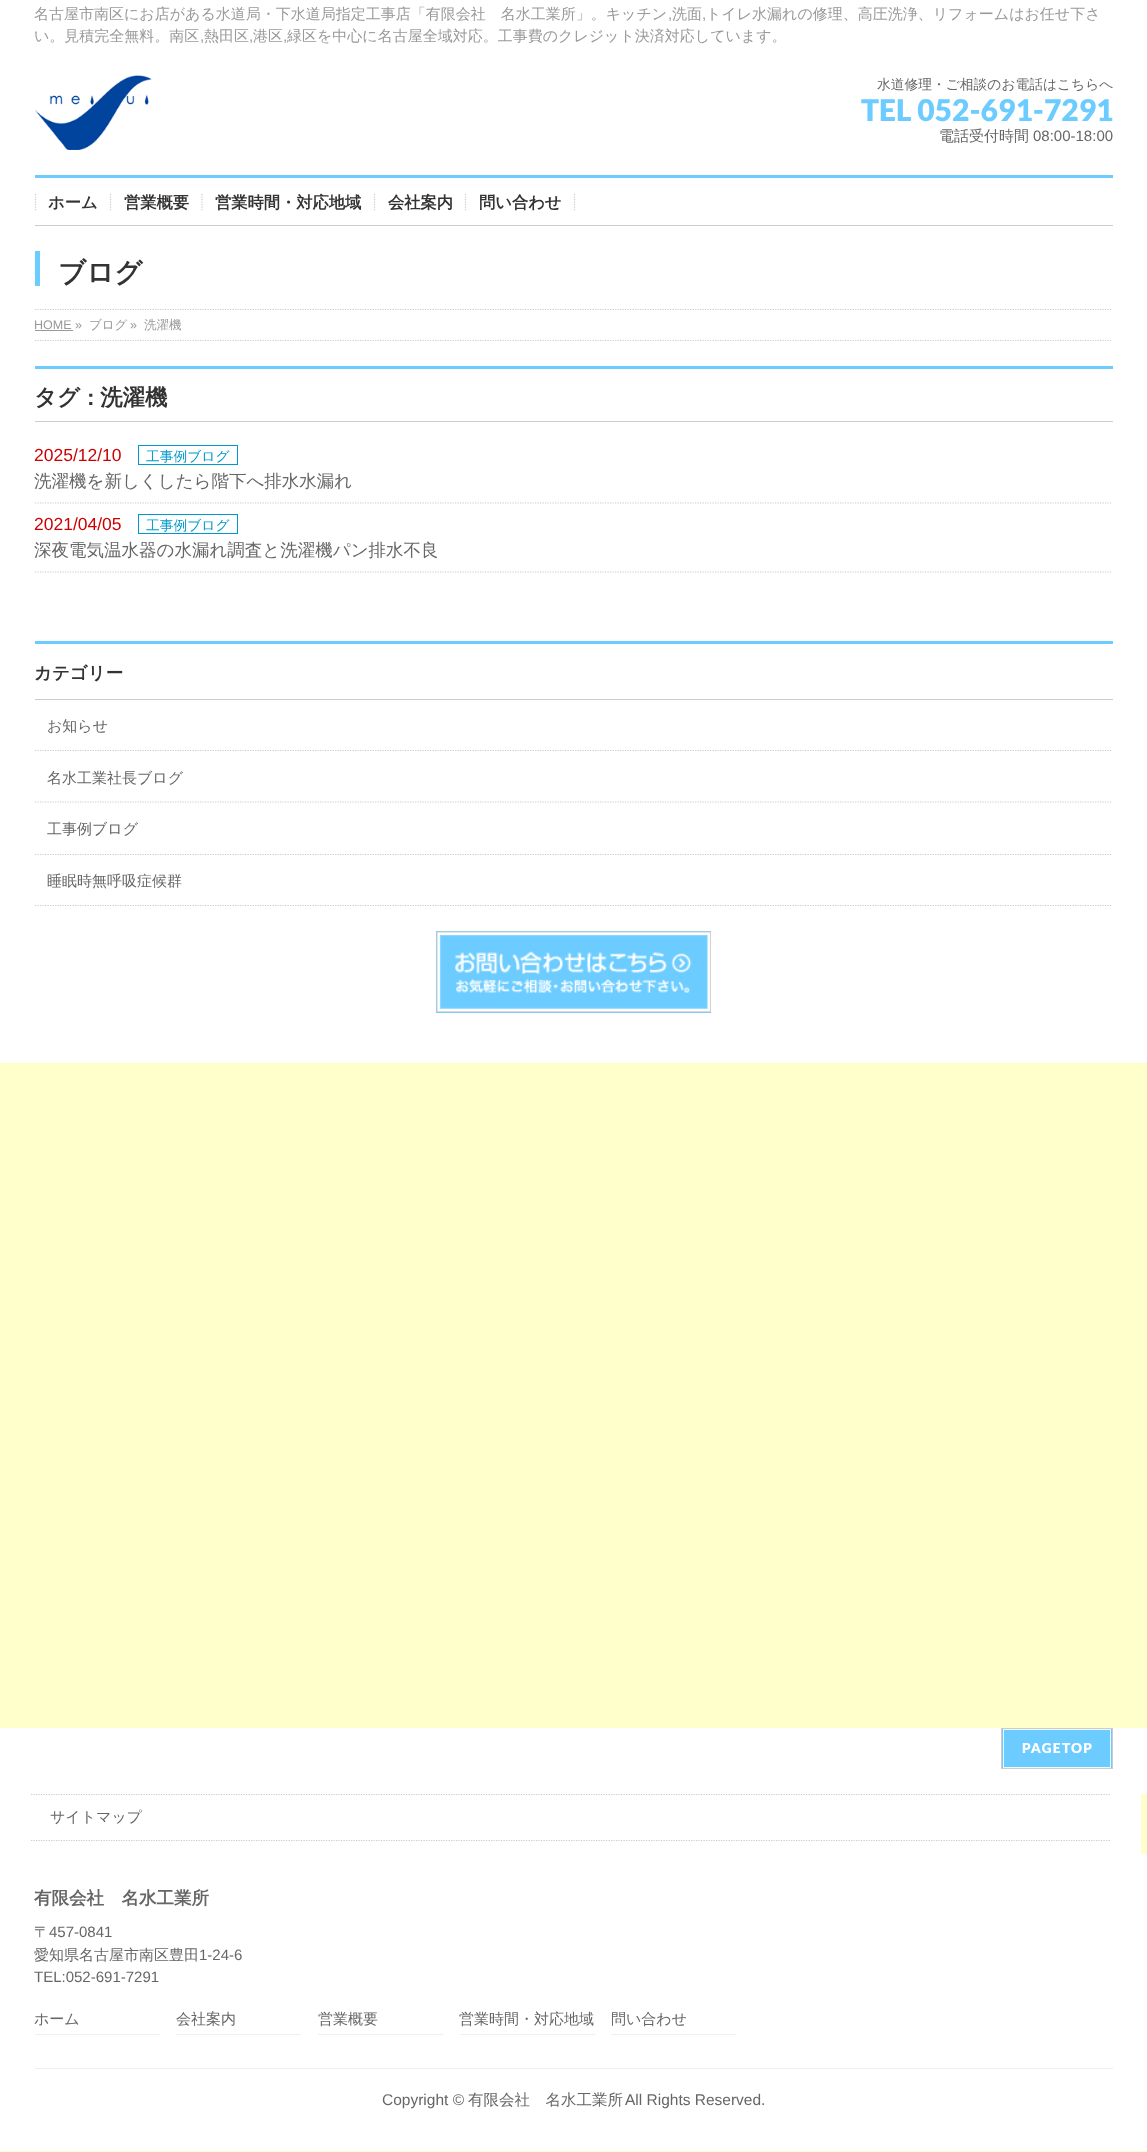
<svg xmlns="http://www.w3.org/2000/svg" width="1147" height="2152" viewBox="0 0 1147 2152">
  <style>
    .t1 { font: 500 15px WenQuanYi Zen Hei; fill: #999; }
    .t2 { font: 15px Liberation Sans; fill: #999; }
    .t3 { font: 500 13.75px WenQuanYi Zen Hei; fill: #666; }
    .t4 { font: 900 30px Lato; fill: #6cccff; }
    .t5 { font: 500 15px WenQuanYi Zen Hei; fill: #666; }
    .t6 { font: 15px Liberation Sans; fill: #666; }
    .t7 { font: bold 16.25px WenQuanYi Zen Hei; fill: #333; }
    .t8 { font: bold 27.5px WenQuanYi Zen Hei; fill: #333; }
    .t9 { font: 12.5px Liberation Sans; fill: #999; }
    .t10 { font: 500 12.5px WenQuanYi Zen Hei; fill: #999; }
    .t11 { font: bold 22.5px WenQuanYi Zen Hei; fill: #333; }
    .t12 { font: bold 22.5px Liberation Sans; fill: #333; }
    .t13 { font: 17.5px Liberation Sans; fill: #c00; }
    .t14 { font: 500 13.75px WenQuanYi Zen Hei; fill: #09c; }
    .t15 { font: 500 17.5px WenQuanYi Zen Hei; fill: #666; }
    .t16 { font: bold 17.5px WenQuanYi Zen Hei; fill: #333; }
    .t17 { font: 900 13.75px Lato; letter-spacing: 1.25px; fill: #fff; }
    .t18 { font: bold 17.5px WenQuanYi Zen Hei; fill: #666; }
    .t19 { font: 15.5px Liberation Sans; fill: #666; }
    .t20 { font: 500 15.5px WenQuanYi Zen Hei; fill: #666; }
  </style>
  <defs>
    <clipPath id="clip1"><rect x="0" y="309" width="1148" height="32"/></clipPath>
    <clipPath id="clip2"><rect x="0" y="1794" width="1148" height="60"/></clipPath>
  </defs>
  <rect width="100%" height="100%" fill="#ffc"/>
  <rect x="0" y="0" width="1147" height="226" fill="#fff"/>
  <text x="34" y="19" class="t1">名古屋市南区にお店がある水道局・下水道局指定工事店「有限会社　名水工業所」。キッチン</text>
  <text x="668" y="19" class="t2">,</text>
  <text x="672" y="19" class="t1">洗面</text>
  <text x="702" y="19" class="t2">,</text>
  <text x="706" y="19" class="t1">トイレ水漏れの修理、高圧洗浄、リフォームはお任せ下さ</text>
  <text x="34" y="41" class="t1">い。見積完全無料。南区</text>
  <text x="200" y="41" class="t2">,</text>
  <text x="204" y="41" class="t1">熱田区</text>
  <text x="249" y="41" class="t2">,</text>
  <text x="253" y="41" class="t1">港区</text>
  <text x="283" y="41" class="t2">,</text>
  <text x="287" y="41" class="t1">緑区を中心に名古屋全域対応。工事費のクレジット決済対応しています。</text>
  <image x="35" y="75" width="117" height="75" href="images/1.png"/>
  <text x="877" y="89" class="t3">水道修理・ご相談のお電話はこちらへ</text>
  <text x="861" y="121" class="t4">TEL 052-691-7291</text>
  <text x="939" y="141" class="t5">電話受付時間</text>
  <text x="1033" y="141" class="t6">08:00-18:00</text>
  <rect x="35" y="175" width="1078" height="3" fill="#6cccff"/>
  <rect x="35" y="225" width="1078" height="1" fill="#ccc"/>
  <path d="M110.5 194V211" fill="none" stroke="#ccc" stroke-width="1.2" stroke-dasharray="1.25 1.25"/>
  <path d="M35.5 194V211" fill="none" stroke="#ccc" stroke-width="1.2" stroke-dasharray="1.25 1.25"/>
  <text x="48" y="208" class="t7">ホーム</text>
  <path d="M202 194V211" fill="none" stroke="#ccc" stroke-width="1.2" stroke-dasharray="1.25 1.25"/>
  <text x="124" y="208" class="t7">営業概要</text>
  <path d="M374.5 194V211" fill="none" stroke="#ccc" stroke-width="1.2" stroke-dasharray="1.25 1.25"/>
  <text x="215" y="208" class="t7">営業時間・対応地域</text>
  <path d="M465.5 194V211" fill="none" stroke="#ccc" stroke-width="1.2" stroke-dasharray="1.25 1.25"/>
  <text x="388" y="208" class="t7">会社案内</text>
  <path d="M574.5 194V211" fill="none" stroke="#ccc" stroke-width="1.2" stroke-dasharray="1.25 1.25"/>
  <text x="479" y="208" class="t7">問い合わせ</text>
  <rect x="0" y="226" width="1147" height="83" fill="#fff"/>
  <rect x="35" y="251" width="5" height="35" fill="#6cccff"/>
  <text x="58" y="282" class="t8">ブログ</text>
  <rect x="0" y="309" width="1147" height="754" fill="#fff"/>
  <g clip-path="url(#clip1)">
    <path d="M35 309.5H1112.5" fill="none" stroke="#ccc" stroke-width="1.2" stroke-dasharray="1.25 1.25"/>
    <path d="M35 340.5H1112.5" fill="none" stroke="#ccc" stroke-width="1.2" stroke-dasharray="1.25 1.25"/>
  </g>
  <text x="34" y="329" class="t9">HOME »</text>
  <rect x="35" y="330" width="38" height="1" fill="#999"/>
  <text x="89" y="329" class="t10">ブログ</text>
  <text x="130" y="329" class="t9">»</text>
  <text x="144" y="329" class="t10">洗濯機</text>
  <rect x="35" y="366" width="1078" height="3" fill="#6cccff"/>
  <rect x="35" y="421" width="1078" height="1" fill="#ccc"/>
  <text x="34" y="405" class="t11">タグ</text>
  <text x="87" y="405" class="t12">:</text>
  <text x="100" y="405" class="t11">洗濯機</text>
  <path d="M35 503H1112.5" fill="none" stroke="#ccc" stroke-width="1.2" stroke-dasharray="1.25 1.25"/>
  <text x="34" y="461" class="t13">2025/12/10</text>
  <rect x="138.5" y="445.5" width="99" height="19" fill="none" stroke="#09c"/>
  <text x="146" y="461" class="t14">工事例ブログ</text>
  <text x="34" y="487" class="t15">洗濯機を新しくしたら階下へ排水水漏れ</text>
  <path d="M35 572H1112.5" fill="none" stroke="#ccc" stroke-width="1.2" stroke-dasharray="1.25 1.25"/>
  <text x="34" y="530" class="t13">2021/04/05</text>
  <rect x="138.5" y="514.5" width="99" height="19" fill="none" stroke="#09c"/>
  <text x="146" y="530" class="t14">工事例ブログ</text>
  <text x="34" y="556" class="t15">深夜電気温水器の水漏れ調査と洗濯機パン排水不良</text>
  <rect x="35" y="641" width="1078" height="3" fill="#6cccff"/>
  <rect x="35" y="699" width="1078" height="1" fill="#ccc"/>
  <text x="34" y="679" class="t16">カテゴリー</text>
  <path d="M35 750.5H1112.5" fill="none" stroke="#ccc" stroke-width="1.2" stroke-dasharray="1.25 1.25"/>
  <text x="47" y="731" class="t5">お知らせ</text>
  <path d="M35 802H1112.5" fill="none" stroke="#ccc" stroke-width="1.2" stroke-dasharray="1.25 1.25"/>
  <text x="47" y="783" class="t5">名水工業社長ブログ</text>
  <path d="M35 854.5H1112.5" fill="none" stroke="#ccc" stroke-width="1.2" stroke-dasharray="1.25 1.25"/>
  <text x="47" y="834" class="t5">工事例ブログ</text>
  <path d="M35 905.5H1112.5" fill="none" stroke="#ccc" stroke-width="1.2" stroke-dasharray="1.25 1.25"/>
  <text x="47" y="886" class="t5">睡眠時無呼吸症候群</text>
  <rect x="436" y="931" width="275" height="82" fill="#6cccff"/>
  <image x="436" y="931" width="275" height="82" href="images/2.png"/>
  <rect x="0" y="1728" width="1147" height="66" fill="#fff"/>
  <rect x="1002" y="1729" width="110" height="39" fill="#6cccff"/>
  <rect x="1003.5" y="1729.5" width="107" height="38" fill="none" stroke="#f0faff"/>
  <rect x="1001.5" y="1728.5" width="111" height="40" fill="none" stroke="#ccc"/>
  <text x="1022" y="1753" class="t17">PAGETOP</text>
  <rect x="0" y="1794" width="1141" height="60" fill="#fff"/>
  <g clip-path="url(#clip2)">
    <path d="M31 1794.5H1110" fill="none" stroke="#ccc" stroke-width="1.2" stroke-dasharray="1.25 1.25"/>
  </g>
  <path d="M31 1840.5H1110" fill="none" stroke="#ccc" stroke-width="1.2" stroke-dasharray="1.25 1.25"/>
  <text x="50" y="1822" class="t5">サイトマップ</text>
  <rect x="0" y="1854" width="1147" height="297" fill="#fff"/>
  <text x="34" y="1904" class="t18">有限会社　名水工業所</text>
  <text x="34" y="1937" class="t5">〒</text>
  <text x="49" y="1937" class="t6">457-0841</text>
  <text x="34" y="1960" class="t5">愛知県名古屋市南区豊田</text>
  <text x="199" y="1960" class="t6">1-24-6</text>
  <text x="34" y="1982" class="t6">TEL:052-691-7291</text>
  <rect x="35" y="2034" width="125" height="1" fill="#efefef"/>
  <text x="34" y="2024" class="t5">ホーム</text>
  <rect x="176" y="2034" width="125" height="1" fill="#efefef"/>
  <text x="176" y="2024" class="t5">会社案内</text>
  <rect x="318" y="2034" width="125" height="1" fill="#efefef"/>
  <text x="318" y="2024" class="t5">営業概要</text>
  <rect x="460" y="2034" width="135" height="1" fill="#efefef"/>
  <text x="459" y="2024" class="t5">営業時間・対応地域</text>
  <rect x="611" y="2034" width="125" height="1" fill="#efefef"/>
  <text x="611" y="2024" class="t5">問い合わせ</text>
  <rect x="35" y="2068" width="1078" height="1" fill="#efefef"/>
  <text x="382" y="2105" class="t19">Copyright ©</text>
  <text x="468" y="2105" class="t20">有限会社　名水工業所</text>
  <text x="625" y="2105" class="t19">All Rights Reserved.</text>
</svg>
